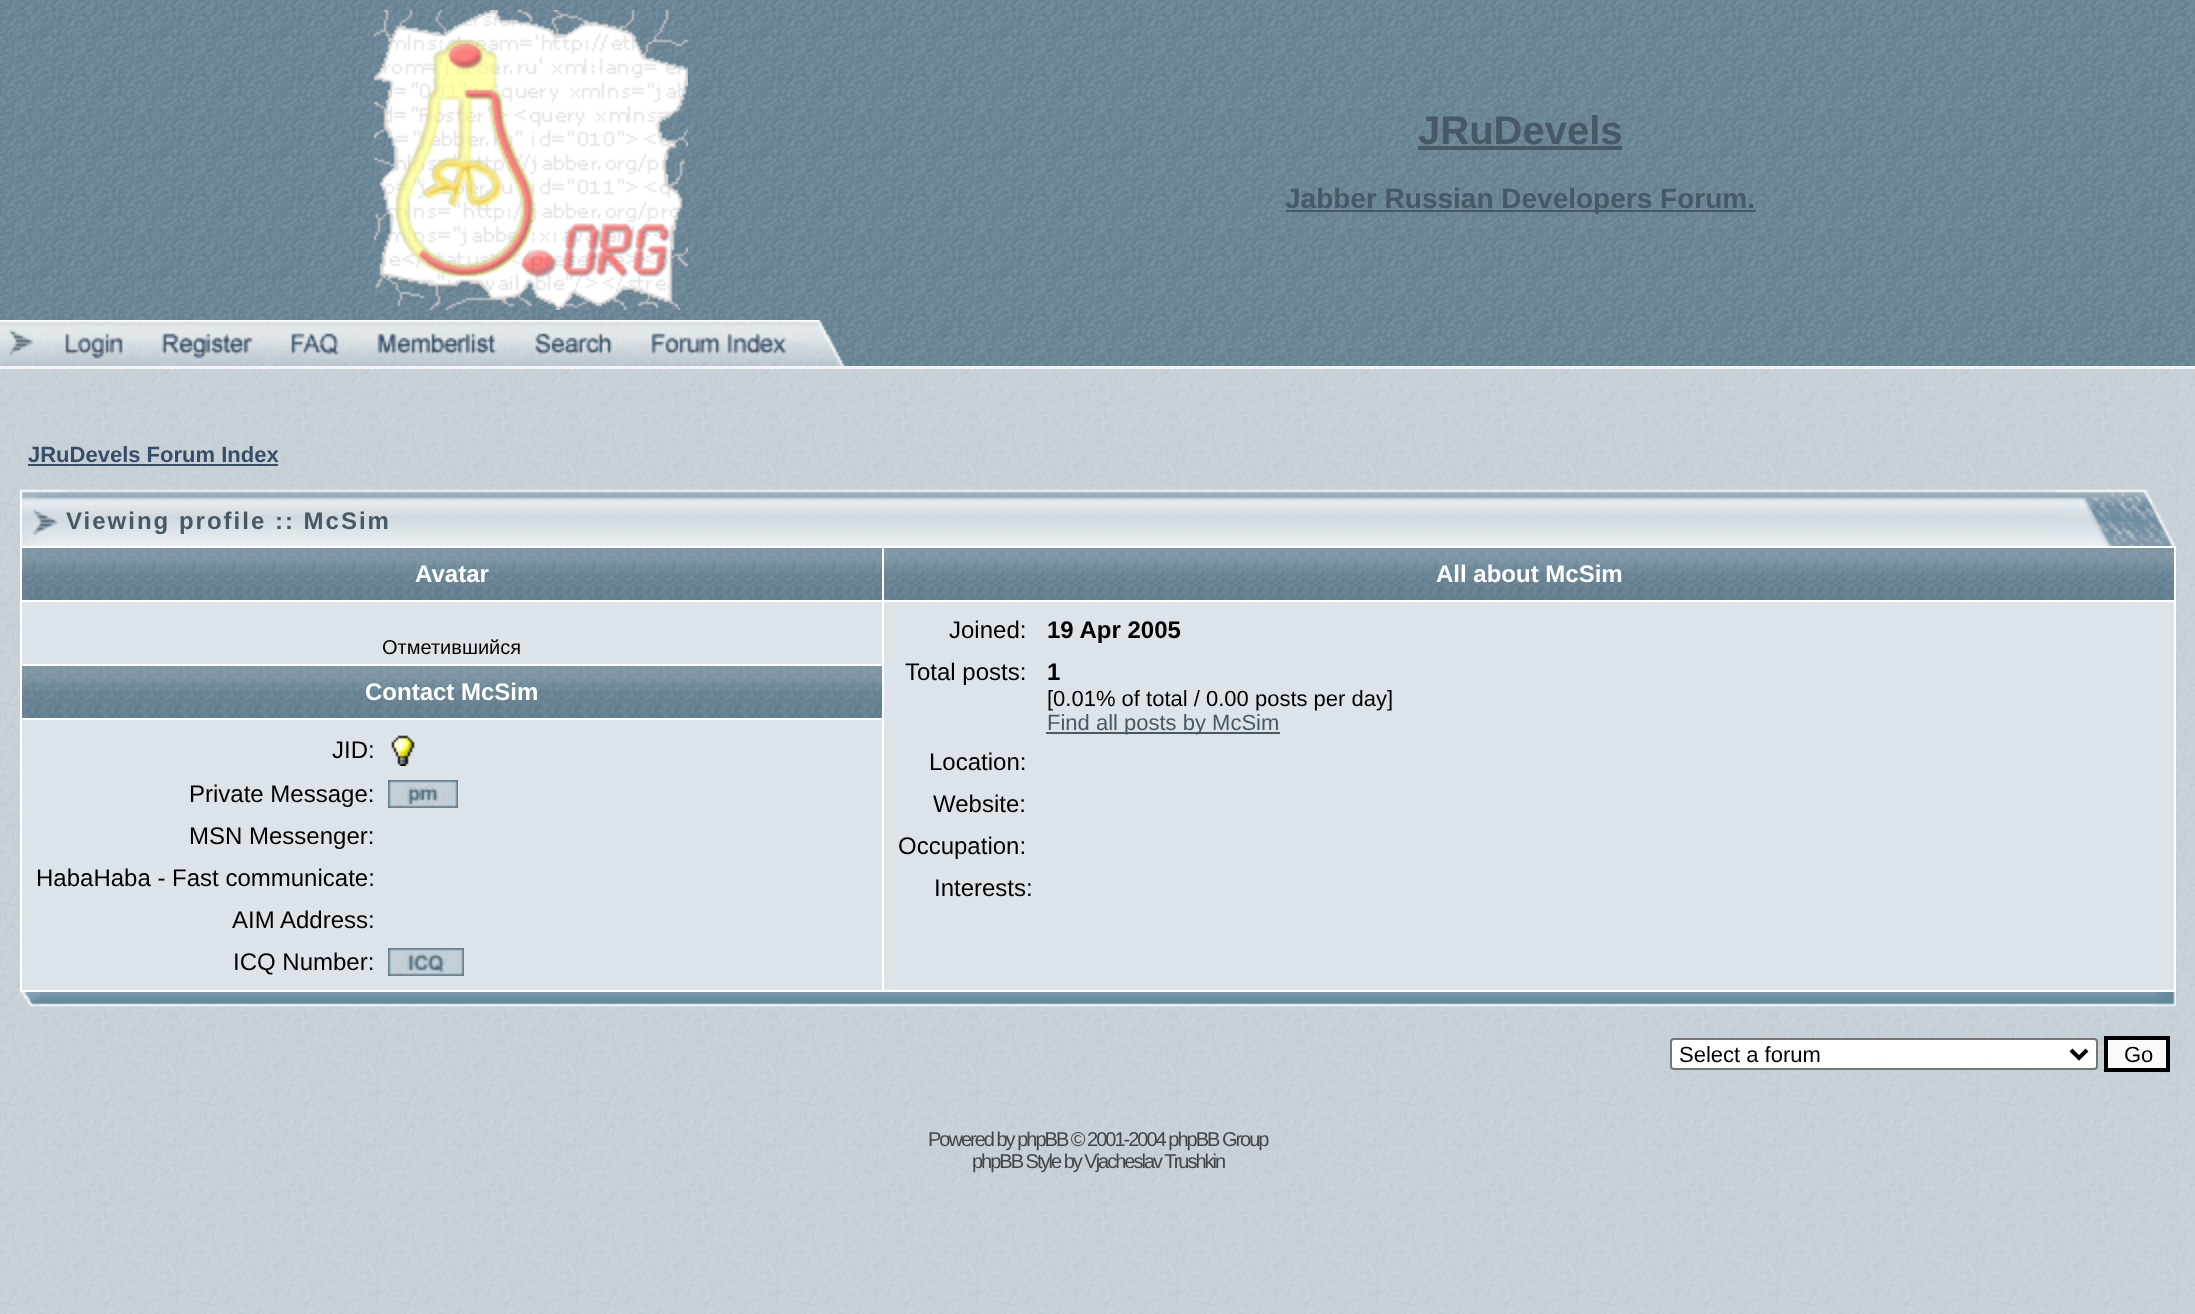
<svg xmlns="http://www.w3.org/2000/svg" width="2195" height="1314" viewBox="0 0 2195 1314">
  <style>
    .t1 { font: bold 40px Liberation Sans; fill: #465964; }
    .t2 { font: bold 28px Liberation Sans; fill: #465964; }
    .t3 { font: bold 22px Liberation Sans; fill: #364d67; }
    .t4 { font: bold 24px Liberation Sans; letter-spacing: 2px; fill: #465964; }
    .t5 { font: bold 24px Liberation Sans; fill: #fff; }
    .t6 { font: 20px Liberation Sans; fill: #000; }
    .t7 { font: 24px Liberation Sans; fill: #000; }
    .t8 { font: bold 24px Liberation Sans; fill: #000; }
    .t9 { font: 22px Liberation Sans; fill: #000; }
    .t10 { font: 22px Liberation Sans; fill: #465964; }
    .t11 { font: 20px Liberation Sans; letter-spacing: -2px; fill: #444; }
  </style>
  <rect width="100%" height="100%" fill="#fff"/>
  <image x="0" y="366" width="2195" height="948" href="images/1.png"/>
  <image x="0" y="0" width="2195" height="366" href="images/2.png"/>
  <image x="374" y="10" width="314" height="300" href="images/3.png"/>
  <text x="1418" y="144" class="t1">JRuDevels</text>
  <rect x="1418" y="146" width="204" height="4" fill="#465964"/>
  <rect x="1286" y="210" width="470" height="2" fill="#465964"/>
  <text x="1285" y="208" class="t2">Jabber Russian Developers Forum.</text>
  <image x="0" y="320" width="46" height="46" href="images/4.png"/>
  <image x="46" y="320" width="96" height="46" href="images/5.png"/>
  <image x="142" y="320" width="130" height="46" href="images/6.png"/>
  <image x="272" y="320" width="86" height="46" href="images/7.png"/>
  <image x="358" y="320" width="158" height="46" href="images/8.png"/>
  <image x="516" y="320" width="116" height="46" href="images/9.png"/>
  <image x="632" y="320" width="174" height="46" href="images/10.png"/>
  <image x="806" y="320" width="39" height="46" href="images/11.png"/>
  <rect x="0" y="366" width="2195" height="3" fill="#ffffffbf"/>
  <text x="28" y="462" class="t3">JRuDevels Forum Index</text>
  <rect x="28" y="464" width="250" height="2" fill="#364d67"/>
  <image x="20" y="489" width="46" height="57" href="images/12.png"/>
  <image x="66" y="489" width="1990" height="57" href="images/13.png"/>
  <text x="66" y="529" class="t4">Viewing profile :: McSim</text>
  <image x="2056" y="489" width="120" height="57" href="images/14.png"/>
  <rect x="20" y="546" width="2156" height="446" fill="#fff"/>
  <image x="22" y="548" width="860" height="52" href="images/15.png"/>
  <text x="415" y="582" class="t5">Avatar</text>
  <image x="884" y="548" width="1290" height="52" href="images/16.png"/>
  <text x="1436" y="582" class="t5">All about McSim</text>
  <rect x="22" y="602" width="860" height="62" fill="#dce3e9"/>
  <text x="382" y="654" class="t6">Отметившийся</text>
  <rect x="884" y="602" width="1290" height="388" fill="#dce3e9"/>
  <text x="949" y="638" class="t7">Joined:</text>
  <text x="1047" y="638" class="t8">19 Apr 2005</text>
  <text x="905" y="680" class="t7">Total posts:</text>
  <text x="1047" y="680" class="t8">1</text>
  <text x="1047" y="706" class="t9">[0.01% of total / 0.00 posts per day]</text>
  <rect x="1046" y="732" width="234" height="2" fill="#465964"/>
  <text x="1047" y="730" class="t10">Find all posts by McSim</text>
  <text x="929" y="770" class="t7">Location:</text>
  <text x="933" y="812" class="t7">Website:</text>
  <text x="898" y="854" class="t7">Occupation:</text>
  <text x="934" y="896" class="t7">Interests:</text>
  <image x="22" y="666" width="860" height="52" href="images/15.png"/>
  <text x="365" y="700" class="t5">Contact McSim</text>
  <rect x="22" y="720" width="860" height="270" fill="#dce3e9"/>
  <text x="332" y="758" class="t7">JID:</text>
  <image x="391" y="735" width="24" height="31" href="images/17.png"/>
  <text x="189" y="802" class="t7">Private Message:</text>
  <image x="388" y="780" width="70" height="28" href="images/18.png"/>
  <text x="189" y="844" class="t7">MSN Messenger:</text>
  <text x="36" y="886" class="t7">HabaHaba - Fast communicate:</text>
  <text x="232" y="928" class="t7">AIM Address:</text>
  <text x="233" y="970" class="t7">ICQ Number:</text>
  <image x="388" y="948" width="76" height="28" href="images/19.png"/>
  <image x="20" y="992" width="20" height="15" href="images/20.png"/>
  <image x="40" y="992" width="2116" height="15" href="images/21.png"/>
  <image x="2156" y="992" width="20" height="15" href="images/22.png"/>
  <rect x="1671" y="1039" width="426" height="30" rx="3" fill="#fff" stroke="#767676" stroke-width="2"/>
  <path d="M2071 1050L2079 1058L2087 1050" fill="none" stroke="#000" stroke-width="4"/>
  <text x="1679" y="1062" class="t9">Select a forum</text>
  <rect x="2106" y="1038" width="62" height="32" fill="#fafafa" stroke="#000" stroke-width="4"/>
  <text x="2124" y="1062" class="t9">Go</text>
  <text x="928" y="1146" class="t11">Powered by phpBB © 2001-2004 phpBB Group</text>
  <text x="972" y="1168" class="t11">phpBB Style by Vjacheslav Trushkin</text>
</svg>
